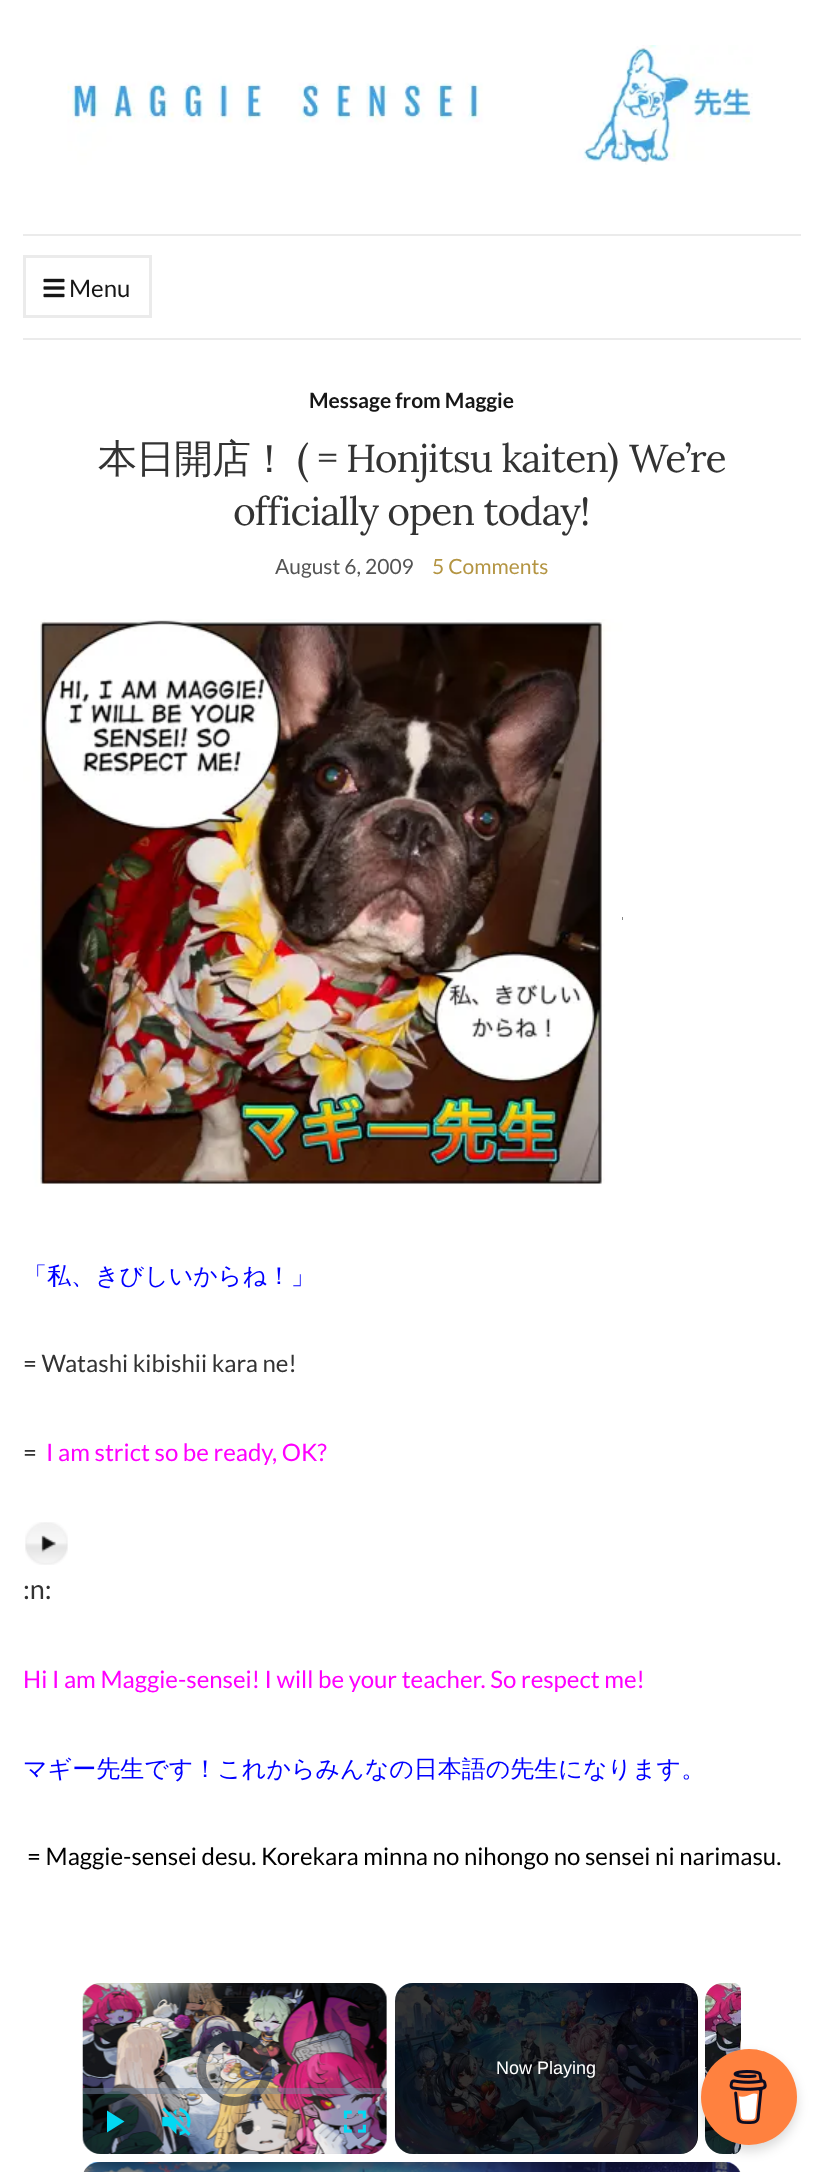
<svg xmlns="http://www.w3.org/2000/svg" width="823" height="2172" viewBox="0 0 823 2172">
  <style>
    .t1 { font: 24px Lato; fill: #161616; }
    .t2 { font: bold 21px Lato; fill: #161616; }
    .t3 { font: 500 39px WenQuanYi Zen Hei; letter-spacing: -1px; fill: #333; }
    .t4 { font: 39px Lora; letter-spacing: -1px; fill: #333; }
    .t5 { font: 21px Lato; fill: #545454; }
    .t6 { font: 21px Lato; fill: #b49543; }
    .t7 { font: 500 24px WenQuanYi Zen Hei; fill: #00f; }
    .t8 { font: 24px Lato; fill: #333; }
    .t9 { font: 24px Lato; fill: #f0f; }
    .t10 { font: 27px Lato; fill: #333; }
    .t11 { font: 24px Lato; fill: #000; }
    .t12 { font: 18px Liberation Sans; fill: #fff; }
  </style>
  <defs>
    <linearGradient id="g1" gradientUnits="userSpaceOnUse" x1="412" y1="2162" x2="412" y2="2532"><stop offset="0" stop-color="#000" stop-opacity="0.6"/><stop offset="0.16" stop-color="#000" stop-opacity="0"/><stop offset="0.84" stop-color="#000" stop-opacity="0"/><stop offset="1" stop-color="#000" stop-opacity="0.8"/></linearGradient>
  </defs>
  <rect width="100%" height="100%" fill="#fff"/>
  <image x="67" y="45" width="686" height="120" href="images/1.png"/>
  <rect x="23" y="234" width="778" height="2" fill="#ebebeb"/>
  <rect x="23" y="338" width="778" height="2" fill="#ebebeb"/>
  <rect x="24.5" y="256.5" width="126" height="60" fill="none" stroke="#ebebeb" stroke-width="3"/>
  <image x="43" y="278" width="22" height="20" href="images/2.png"/>
  <text x="69" y="297" class="t1">Menu</text>
  <text x="309" y="408" class="t2">Message from Maggie</text>
  <text x="98" y="472" class="t3">本日開店！</text>
  <text x="297" y="472" class="t4">( = Honjitsu kaiten)</text>
  <text x="629" y="472" class="t4">We’re</text>
  <text x="233" y="525" class="t4">officially open today!</text>
  <text x="275" y="574" class="t5">August 6, 2009</text>
  <text x="432" y="574" class="t6">5 Comments</text>
  <rect x="622" y="917" width="1" height="3" fill="#111"/>
  <image x="23" y="619" width="600" height="568" href="images/3.png"/>
  <text x="23" y="1284" class="t7">「私、きびしいからね！」</text>
  <text x="23" y="1372" class="t8">= Watashi kibishii kara ne!</text>
  <text x="23" y="1461" class="t8">=</text>
  <text x="46" y="1461" class="t9">I am strict so be ready, OK?</text>
  <image x="25" y="1522" width="43" height="43" href="images/4.png"/>
  <text x="23" y="1599" class="t10">:n:</text>
  <text x="23" y="1688" class="t9">Hi I am Maggie-sensei! I will be your teacher. So respect me!</text>
  <text x="23" y="1777" class="t7">マギー先生です！これからみんなの日本語の先生になります。</text>
  <text x="27" y="1865" class="t11">= Maggie-sensei desu. Korekara minna no nihongo no sensei ni narimasu.</text>
  <image x="82" y="1983" width="305" height="171" href="images/5.png"/>
  <circle cx="234.5" cy="2068.5" r="33" fill="none" stroke="#2b333f96" stroke-width="9"/>
  <path d="M210.5 2045C223.5 2032.5 244.5 2032.5 257.5 2045" fill="none" stroke="#2b333f96" stroke-width="9"/>
  <path d="M210.5 2045C223.5 2032.5 244.5 2032.5 257.5 2045" fill="none" stroke="#2b333f96" stroke-width="9"/>
  <rect x="83" y="2088" width="304" height="6" fill="#73859f80"/>
  <path d="M107 2110.5V2132.5L124.5 2121.5Z" fill="#03d8f3"/>
  <image x="162" y="2107" width="29" height="29" href="images/6.png"/>
  <image x="343" y="2110" width="23" height="23" href="images/7.png"/>
  <rect x="395" y="1983" width="303" height="171" rx="18" fill="#000"/>
  <image x="394" y="1983" width="304" height="171" href="images/8.png"/>
  <text x="496" y="2074" class="t12">Now Playing</text>
  <image x="705" y="1983" width="36" height="171" href="images/9.png"/>
  <image x="84" y="2162" width="656" height="10" href="images/10.png"/>
  <image x="84" y="2162" width="656" height="10" href="images/11.png"/>
  <rect x="83" y="2162" width="658" height="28" rx="18" fill="url(#g1)"/>
  <rect x="701" y="2055" width="96" height="96" rx="48" fill="#00000026" filter="blur(6px)"/>
  <circle cx="749" cy="2097" r="48" fill="#ff813f"/>
  <image x="729" y="2070" width="38" height="54" href="images/12.png"/>
</svg>
